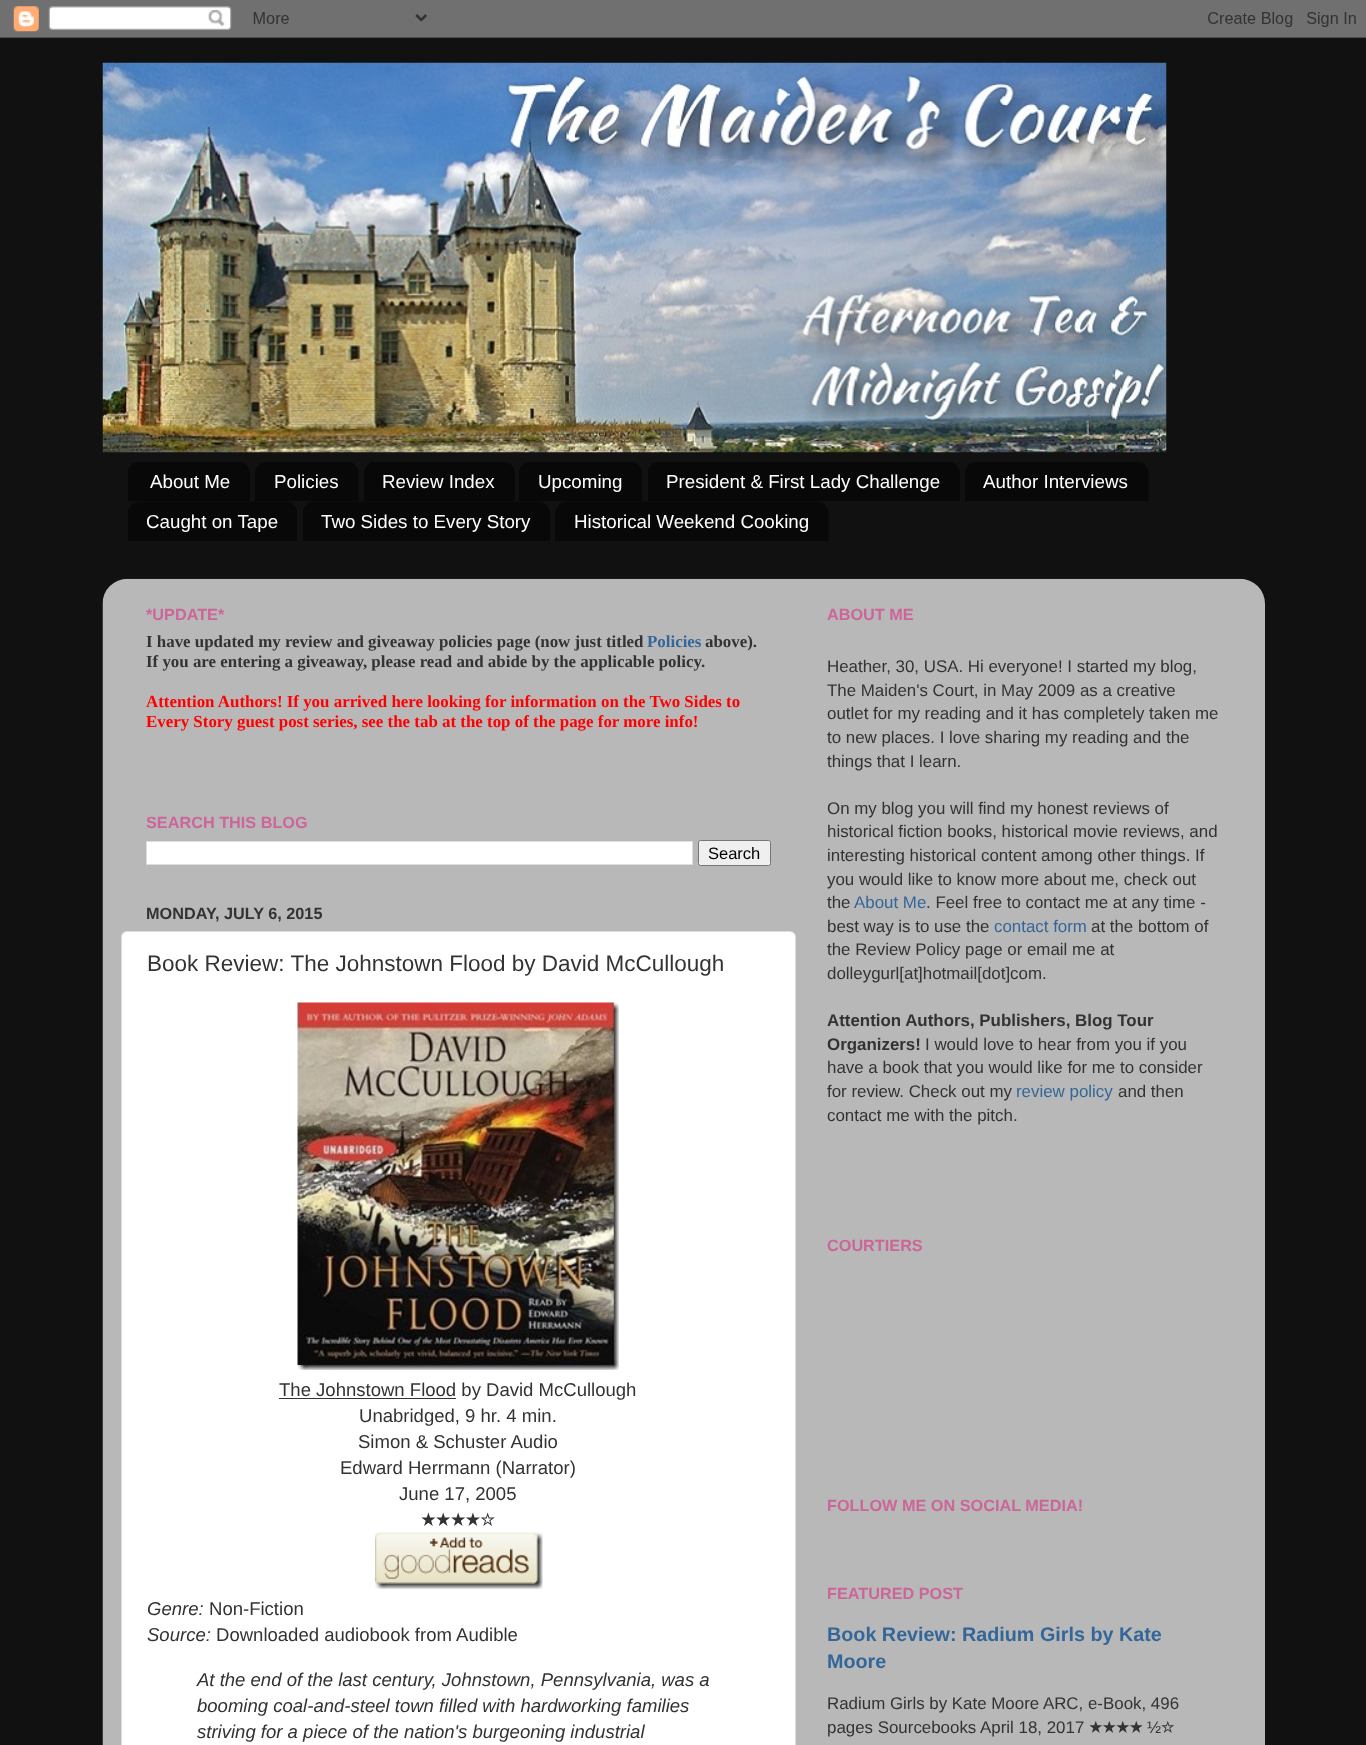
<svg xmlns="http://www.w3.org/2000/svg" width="1366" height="1745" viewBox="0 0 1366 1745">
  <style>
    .t1 { font: 18.75px Liberation Sans; fill: #fff; }
    .t2 { font: bold 16.25px Liberation Sans; fill: #c69; }
    .t3 { font: bold 16.9px Liberation Serif; fill: #333; }
    .t4 { font: bold 16.9px Liberation Serif; fill: #369; }
    .t5 { font: bold 16.9px Liberation Serif; fill: #f00; }
    .t6 { font: 16.5px Liberation Sans; fill: #000; }
    .t7 { font: bold 16.25px Liberation Sans; fill: #333; }
    .t8 { font: 22.5px Liberation Sans; fill: #333; }
    .t9 { font: 18.55px Liberation Sans; fill: #333; }
    .t10 { font: 18.55px FreeSans; fill: #333; }
    .t11 { font: italic 18.55px Liberation Sans; fill: #333; }
    .t12 { font: 16.9px Liberation Sans; fill: #333; }
    .t13 { font: 16.9px Liberation Sans; fill: #369; }
    .t14 { font: bold 16.9px Liberation Sans; fill: #333; }
    .t15 { font: bold 19.75px Liberation Sans; fill: #369; }
    .t16 { font: 16.9px FreeSans; fill: #333; }
  </style>
  <rect width="100%" height="100%" fill="#111"/>
  <image x="0" y="0" width="1366" height="38" href="images/1.png"/>
  <image x="102" y="62" width="1065" height="391" href="images/2.png"/>
  <image x="128" y="462" width="122" height="39" href="images/3.png"/>
  <text x="150" y="488" class="t1">About Me</text>
  <image x="255" y="462" width="104" height="39" href="images/4.png"/>
  <text x="274" y="488" class="t1">Policies</text>
  <image x="364" y="462" width="151" height="39" href="images/5.png"/>
  <text x="382" y="488" class="t1">Review Index</text>
  <image x="519" y="462" width="123" height="39" href="images/6.png"/>
  <text x="538" y="488" class="t1">Upcoming</text>
  <image x="648" y="462" width="312" height="39" href="images/7.png"/>
  <text x="666" y="488" class="t1">President &amp; First Lady Challenge</text>
  <image x="965" y="462" width="184" height="39" href="images/8.png"/>
  <text x="983" y="488" class="t1">Author Interviews</text>
  <image x="128" y="501" width="169" height="40" href="images/9.png"/>
  <text x="146" y="528" class="t1">Caught on Tape</text>
  <image x="303" y="501" width="247" height="40" href="images/10.png"/>
  <text x="321" y="528" class="t1">Two Sides to Every Story</text>
  <image x="555" y="501" width="274" height="40" href="images/11.png"/>
  <text x="574" y="528" class="t1">Historical Weekend Cooking</text>
  <image x="102" y="578" width="1163" height="1167" href="images/12.png"/>
  <text x="146" y="620" class="t2">*UPDATE*</text>
  <text x="146" y="647" class="t3">I have updated my review and giveaway policies page (now just titled</text>
  <text x="647" y="647" class="t4">Policies</text>
  <text x="705" y="647" class="t3">above).</text>
  <text x="146" y="667" class="t3">If you are entering a giveaway, please read and abide by the applicable policy.</text>
  <text x="146" y="707" class="t5">Attention Authors! If you arrived here looking for information on the Two Sides to</text>
  <text x="146" y="727" class="t5">Every Story guest post series, see the tab at the top of the page for more info!</text>
  <text x="146" y="828" class="t2">SEARCH THIS BLOG</text>
  <rect x="146.5" y="841.5" width="546" height="23" fill="#fff" stroke="#ddd"/>
  <rect x="698.5" y="840.5" width="72" height="25" rx="2" fill="#efefef" stroke="#767676"/>
  <text x="708" y="859" class="t6">Search</text>
  <text x="146" y="919" class="t7">MONDAY, JULY 6, 2015</text>
  <rect x="121.5" y="931.5" width="674" height="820" rx="5.5" fill="#fff" stroke="#ddd"/>
  <text x="147" y="971" class="t8">Book Review: The Johnstown Flood by David McCullough</text>
  <image x="297" y="1002" width="322" height="368" href="images/13.png"/>
  <rect x="279" y="1398" width="177" height="1" fill="#333"/>
  <text x="279" y="1396" class="t9">The Johnstown Flood by David McCullough</text>
  <text x="359" y="1422" class="t9">Unabridged, 9 hr. 4 min.</text>
  <text x="358" y="1448" class="t9">Simon &amp; Schuster Audio</text>
  <text x="340" y="1474" class="t9">Edward Herrmann (Narrator)</text>
  <text x="399" y="1500" class="t9">June 17, 2005</text>
  <text x="421" y="1526" class="t10">★★★★☆</text>
  <image x="375" y="1532" width="168" height="57" href="images/14.png"/>
  <text x="147" y="1615" class="t11">Genre:</text>
  <text x="209" y="1615" class="t9">Non-Fiction</text>
  <text x="147" y="1641" class="t11">Source:</text>
  <text x="216" y="1641" class="t9">Downloaded audiobook from Audible</text>
  <text x="197" y="1686" class="t11">At the end of the last century, Johnstown, Pennsylvania, was a</text>
  <text x="197" y="1712" class="t11">booming coal-and-steel town filled with hardworking families</text>
  <text x="197" y="1738" class="t11">striving for a piece of the nation's burgeoning industrial</text>
  <text x="827" y="620" class="t2">ABOUT ME</text>
  <text x="827" y="672" class="t12">Heather, 30, USA. Hi everyone! I started my blog,</text>
  <text x="827" y="696" class="t12">The Maiden's Court, in May 2009 as a creative</text>
  <text x="827" y="719" class="t12">outlet for my reading and it has completely taken me</text>
  <text x="827" y="743" class="t12">to new places. I love sharing my reading and the</text>
  <text x="827" y="767" class="t12">things that I learn.</text>
  <text x="827" y="814" class="t12">On my blog you will find my honest reviews of</text>
  <text x="827" y="837" class="t12">historical fiction books, historical movie reviews, and</text>
  <text x="827" y="861" class="t12">interesting historical content among other things. If</text>
  <text x="827" y="885" class="t12">you would like to know more about me, check out</text>
  <text x="827" y="908" class="t12">the</text>
  <text x="854" y="908" class="t13">About Me</text>
  <text x="926" y="908" class="t12">. Feel free to contact me at any time -</text>
  <text x="827" y="932" class="t12">best way is to use the</text>
  <text x="994" y="932" class="t13">contact form</text>
  <text x="1091" y="932" class="t12">at the bottom of</text>
  <text x="827" y="955" class="t12">the Review Policy page or email me at</text>
  <text x="827" y="979" class="t12">dolleygurl[at]hotmail[dot]com.</text>
  <text x="827" y="1026" class="t14">Attention Authors, Publishers, Blog Tour</text>
  <text x="827" y="1050" class="t14">Organizers!</text>
  <text x="925" y="1050" class="t12">I would love to hear from you if you</text>
  <text x="827" y="1073" class="t12">have a book that you would like for me to consider</text>
  <text x="827" y="1097" class="t12">for review. Check out my</text>
  <text x="1016" y="1097" class="t13">review policy</text>
  <text x="1118" y="1097" class="t12">and then</text>
  <text x="827" y="1121" class="t12">contact me with the pitch.</text>
  <text x="827" y="1251" class="t2">COURTIERS</text>
  <text x="827" y="1511" class="t2">FOLLOW ME ON SOCIAL MEDIA!</text>
  <text x="827" y="1599" class="t2">FEATURED POST</text>
  <text x="827" y="1641" class="t15">Book Review: Radium Girls by Kate</text>
  <text x="827" y="1668" class="t15">Moore</text>
  <text x="827" y="1709" class="t12">Radium Girls by Kate Moore ARC, e-Book, 496</text>
  <text x="827" y="1733" class="t12">pages Sourcebooks April 18, 2017</text>
  <text x="1089" y="1733" class="t16">★★★★</text>
  <text x="1147" y="1733" class="t12">½</text>
  <text x="1161" y="1733" class="t16">☆</text>
</svg>
